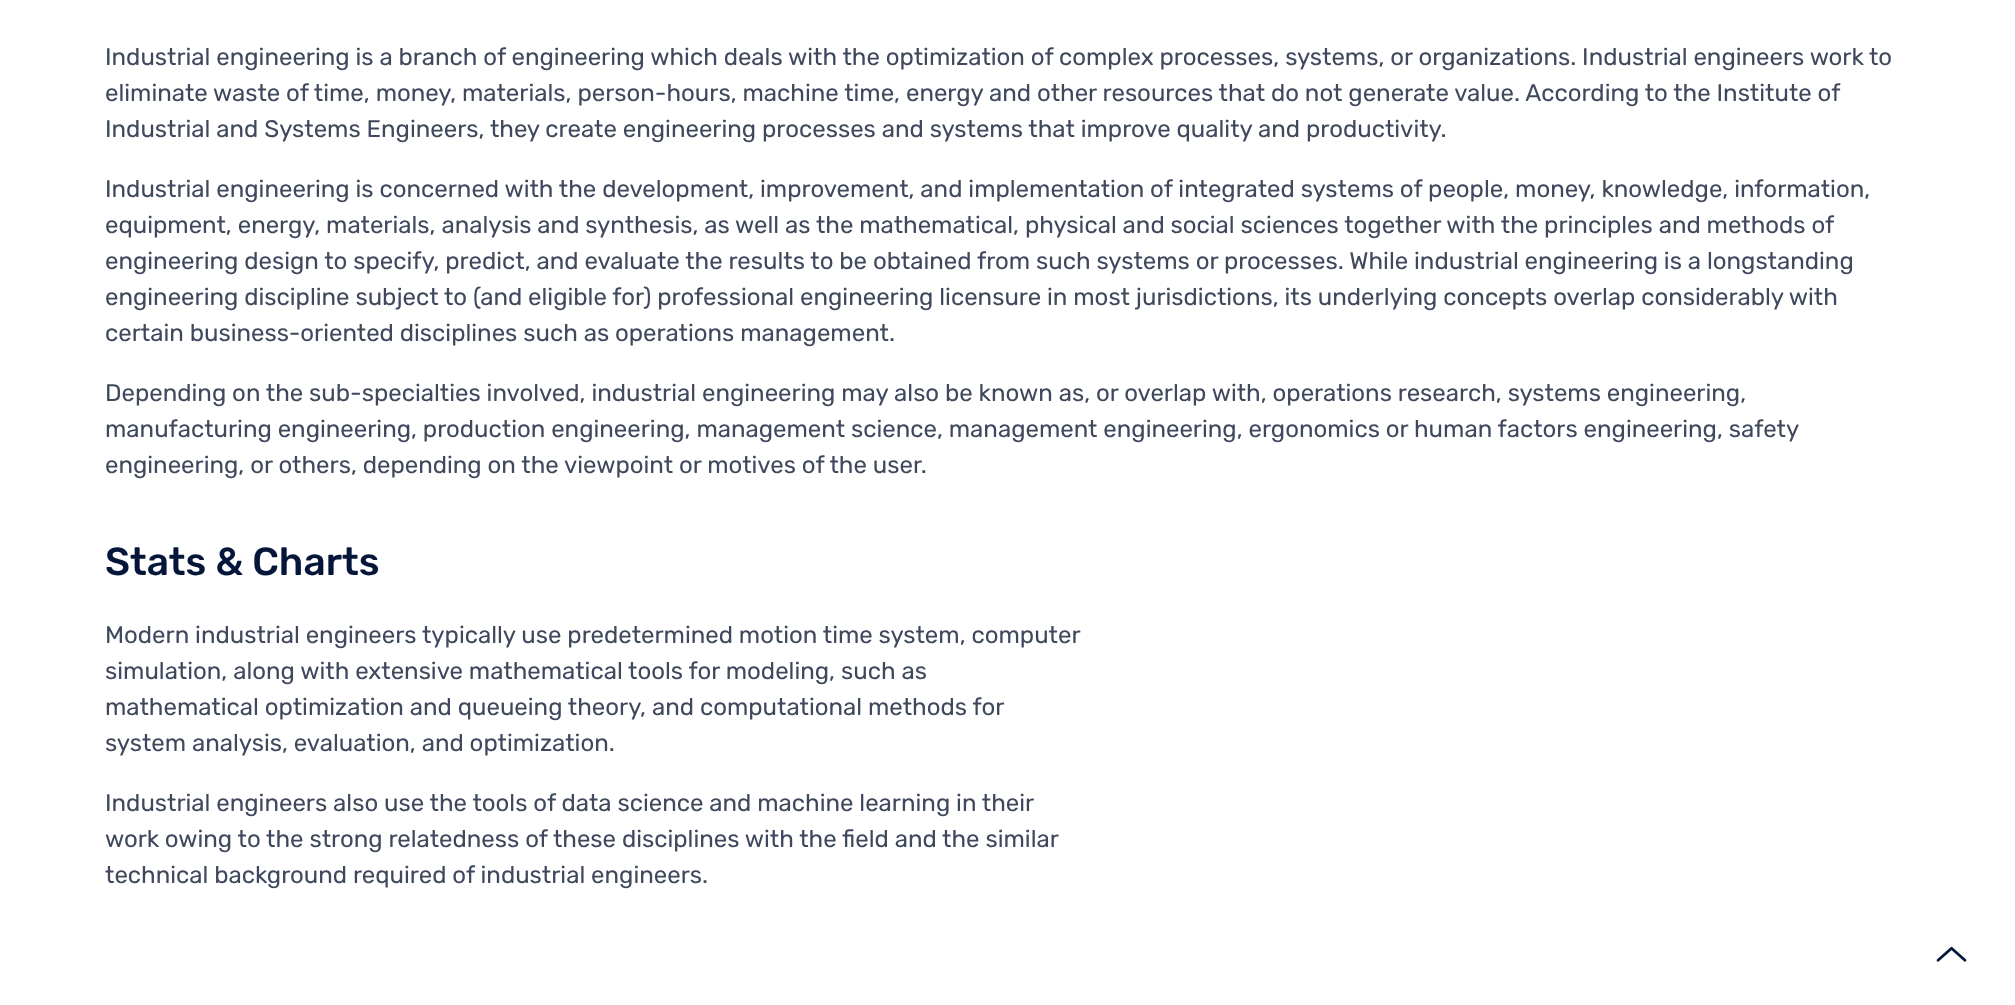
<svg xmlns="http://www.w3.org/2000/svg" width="2015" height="1005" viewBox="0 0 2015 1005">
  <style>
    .t1 { font: 24px Rubik; fill: #3f485d; }
    .t2 { font: 500 39px Rubik; fill: #06163a; }
  </style>
  <rect width="100%" height="100%" fill="#fff"/>
  <text x="105" y="65" class="t1">Industrial engineering is a branch of engineering which deals with the optimization of complex processes, systems, or organizations. Industrial engineers work to</text>
  <text x="105" y="101" class="t1">eliminate waste of time, money, materials, person-hours, machine time, energy and other resources that do not generate value. According to the Institute of</text>
  <text x="105" y="137" class="t1">Industrial and Systems Engineers, they create engineering processes and systems that improve quality and productivity.</text>
  <text x="105" y="197" class="t1">Industrial engineering is concerned with the development, improvement, and implementation of integrated systems of people, money, knowledge, information,</text>
  <text x="105" y="233" class="t1">equipment, energy, materials, analysis and synthesis, as well as the mathematical, physical and social sciences together with the principles and methods of</text>
  <text x="105" y="269" class="t1">engineering design to specify, predict, and evaluate the results to be obtained from such systems or processes. While industrial engineering is a longstanding</text>
  <text x="105" y="305" class="t1">engineering discipline subject to (and eligible for) professional engineering licensure in most jurisdictions, its underlying concepts overlap considerably with</text>
  <text x="105" y="341" class="t1">certain business-oriented disciplines such as operations management.</text>
  <text x="105" y="401" class="t1">Depending on the sub-specialties involved, industrial engineering may also be known as, or overlap with, operations research, systems engineering,</text>
  <text x="105" y="437" class="t1">manufacturing engineering, production engineering, management science, management engineering, ergonomics or human factors engineering, safety</text>
  <text x="105" y="473" class="t1">engineering, or others, depending on the viewpoint or motives of the user.</text>
  <text x="105" y="575" class="t2">Stats &amp; Charts</text>
  <text x="105" y="643" class="t1">Modern industrial engineers typically use predetermined motion time system, computer</text>
  <text x="105" y="679" class="t1">simulation, along with extensive mathematical tools for modeling, such as</text>
  <text x="105" y="715" class="t1">mathematical optimization and queueing theory, and computational methods for</text>
  <text x="105" y="751" class="t1">system analysis, evaluation, and optimization.</text>
  <text x="105" y="811" class="t1">Industrial engineers also use the tools of data science and machine learning in their</text>
  <text x="105" y="847" class="t1">work owing to the strong relatedness of these disciplines with the field and the similar</text>
  <text x="105" y="883" class="t1">technical background required of industrial engineers.</text>
  <image x="1936" y="946" width="31" height="16" href="images/1.png"/>
</svg>
